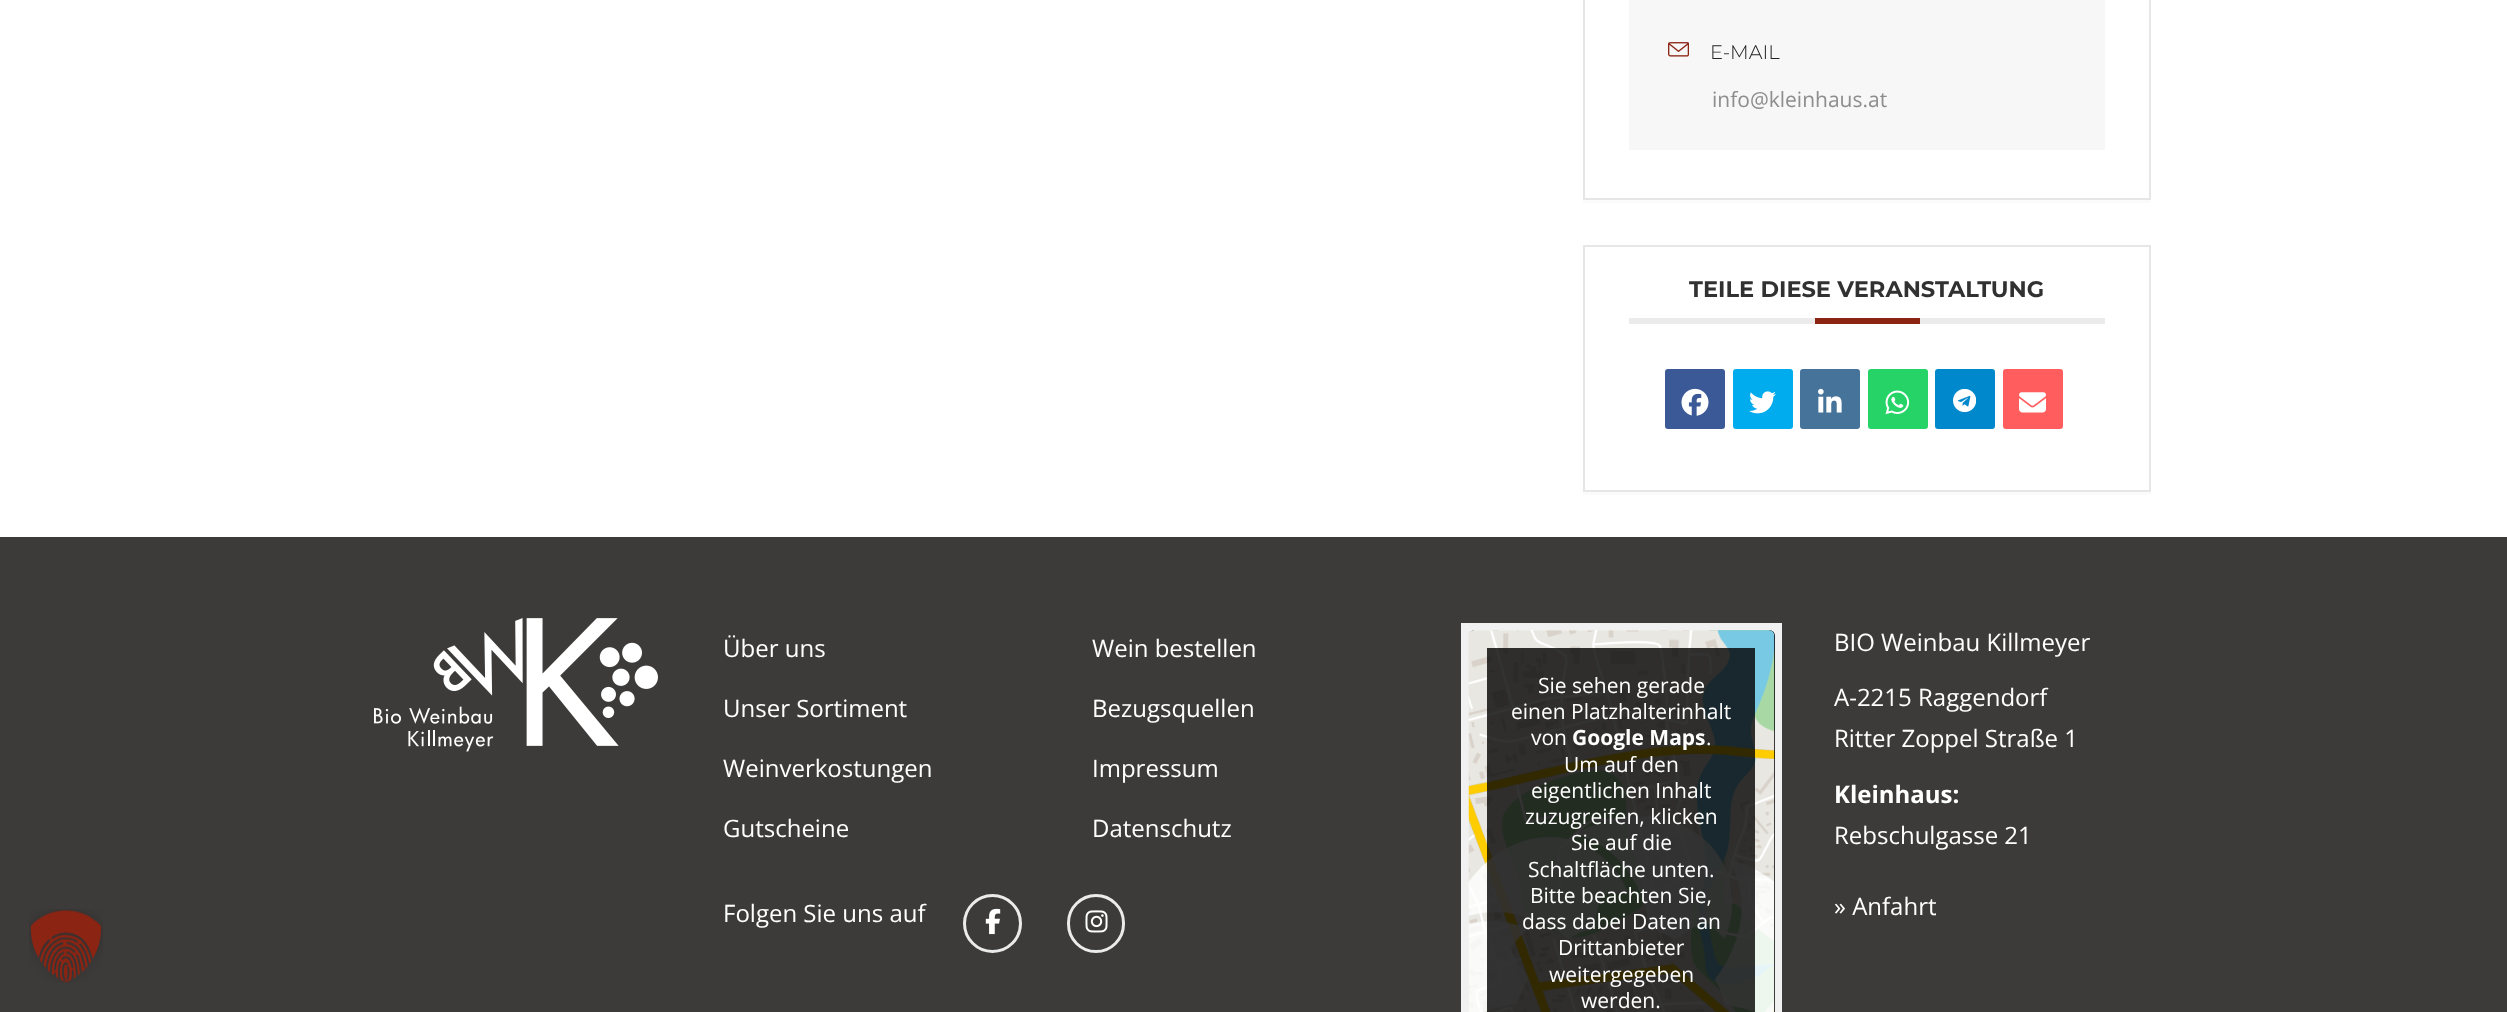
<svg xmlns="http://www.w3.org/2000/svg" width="2507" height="1012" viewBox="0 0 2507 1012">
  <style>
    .t1 { font: 300 19.5px Montserrat; fill: #222; }
    .t2 { font: 21px Open Sans; fill: #8d8d8d; }
    .t3 { font: bold 22.5px Montserrat; fill: #313131; }
    .t4 { font: 24px Open Sans; fill: #fff; }
    .t5 { font: 21px Open Sans; fill: #fff; }
    .t6 { font: bold 21px Open Sans; fill: #fff; }
    .t7 { font: bold 24px Open Sans; fill: #fff; }
  </style>
  <rect width="100%" height="100%" fill="#fff"/>
  <rect x="0" y="537" width="2507" height="475" fill="#3c3b3a"/>
  <image x="29" y="909" width="74" height="74" href="images/1.png"/>
  <rect x="1583" y="200" width="568" height="3" fill="#fbfbfb"/>
  <rect x="1584" y="-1" width="566" height="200" fill="none" stroke="#e6e6e6" stroke-width="2"/>
  <rect x="1629" y="0" width="476" height="150" fill="#f7f7f7"/>
  <image x="1668" y="42" width="21" height="15" href="images/2.png"/>
  <text x="1710" y="59" class="t1">E-MAIL</text>
  <text x="1712" y="107" class="t2">info@kleinhaus.at</text>
  <rect x="1583" y="492" width="568" height="3" fill="#fbfbfb"/>
  <rect x="1584" y="246" width="566" height="245" fill="none" stroke="#e6e6e6" stroke-width="2"/>
  <rect x="1629" y="318" width="476" height="6" fill="#ebebeb"/>
  <text x="1689" y="297" class="t3">TEILE DIESE VERANSTALTUNG</text>
  <rect x="1815" y="318" width="105" height="6" fill="#8b2413"/>
  <rect x="1665" y="369" width="60" height="60" rx="3" fill="#3b5996"/>
  <image x="1681" y="388" width="28" height="28" href="images/3.png"/>
  <rect x="1733" y="369" width="60" height="60" rx="3" fill="#00acee"/>
  <image x="1749" y="391" width="27" height="23" href="images/4.png"/>
  <rect x="1800" y="369" width="60" height="60" rx="3" fill="#457399"/>
  <image x="1818" y="388" width="24" height="25" href="images/5.png"/>
  <rect x="1868" y="369" width="60" height="60" rx="3" fill="#25d366"/>
  <image x="1885" y="390" width="25" height="25" href="images/6.png"/>
  <rect x="1935" y="369" width="60" height="60" rx="3" fill="#08c"/>
  <image x="1953" y="389" width="23" height="24" href="images/7.png"/>
  <rect x="2003" y="369" width="60" height="60" rx="3" fill="#ff5d5e"/>
  <image x="2019" y="392" width="27" height="21" href="images/8.png"/>
  <image x="374" y="618" width="284" height="134" href="images/9.png"/>
  <text x="723" y="657" class="t4">Über uns</text>
  <text x="723" y="717" class="t4">Unser Sortiment</text>
  <text x="723" y="777" class="t4">Weinverkostungen</text>
  <text x="723" y="837" class="t4">Gutscheine</text>
  <text x="1092" y="657" class="t4">Wein bestellen</text>
  <text x="1092" y="717" class="t4">Bezugsquellen</text>
  <text x="1092" y="777" class="t4">Impressum</text>
  <text x="1092" y="837" class="t4">Datenschutz</text>
  <text x="723" y="922" class="t4">Folgen Sie uns auf</text>
  <circle cx="992.5" cy="923.5" r="28" fill="none" stroke="#ebebeb" stroke-width="3"/>
  <image x="985" y="908" width="16" height="27" href="images/10.png"/>
  <rect x="1068.5" y="895.5" width="55" height="56" rx="27.5" fill="none" stroke="#ebebeb" stroke-width="3"/>
  <image x="1085" y="910" width="23" height="23" href="images/11.png"/>
  <rect x="1461" y="623" width="321" height="389" fill="#f1f1f1"/>
  <rect x="1469" y="630" width="306" height="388" rx="6" fill="#000"/>
  <image x="1468" y="630" width="307" height="382" href="images/12.png"/>
  <rect x="1487" y="648" width="268" height="364" fill="#000000cc"/>
  <text x="1538" y="693" class="t5">Sie sehen gerade</text>
  <text x="1511" y="719" class="t5">einen Platzhalterinhalt</text>
  <text x="1531" y="745" class="t5">von</text>
  <text x="1572" y="745" class="t6">Google Maps</text>
  <text x="1706" y="745" class="t5">.</text>
  <text x="1564" y="772" class="t5">Um auf den</text>
  <text x="1531" y="798" class="t5">eigentlichen Inhalt</text>
  <text x="1525" y="824" class="t5">zuzugreifen, klicken</text>
  <text x="1571" y="850" class="t5">Sie auf die</text>
  <text x="1528" y="877" class="t5">Schaltfläche unten.</text>
  <text x="1530" y="903" class="t5">Bitte beachten Sie,</text>
  <text x="1522" y="929" class="t5">dass dabei Daten an</text>
  <text x="1558" y="955" class="t5">Drittanbieter</text>
  <text x="1549" y="982" class="t5">weitergegeben</text>
  <text x="1581" y="1008" class="t5">werden.</text>
  <text x="1834" y="651" class="t4">BIO Weinbau Killmeyer</text>
  <text x="1834" y="706" class="t4">A-2215 Raggendorf</text>
  <text x="1834" y="747" class="t4">Ritter Zoppel Straße 1</text>
  <text x="1834" y="803" class="t7">Kleinhaus:</text>
  <text x="1834" y="844" class="t4">Rebschulgasse 21</text>
  <text x="1834" y="915" class="t4">» Anfahrt</text>
</svg>
